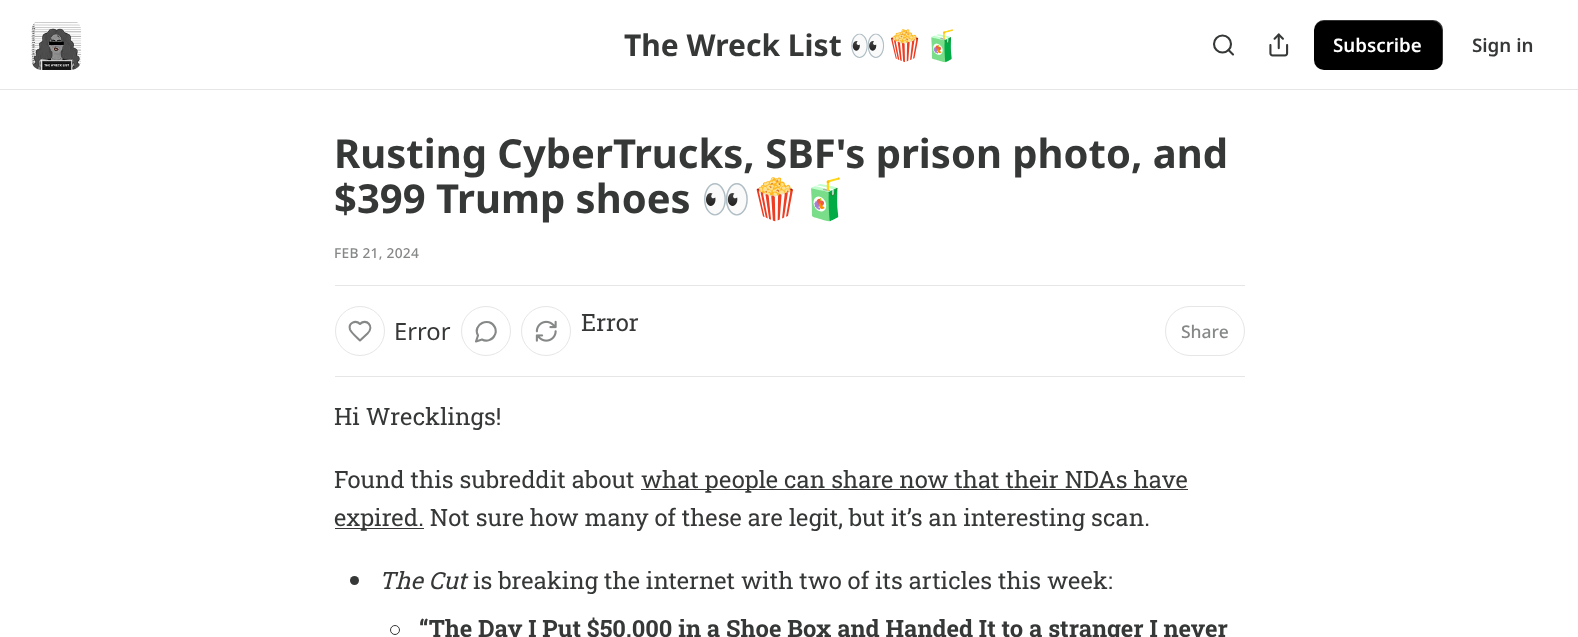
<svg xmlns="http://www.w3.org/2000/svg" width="1578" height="637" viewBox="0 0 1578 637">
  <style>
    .t1 { font: bold 30px Noto Sans; fill: #363737; }
    .t2 { font: bold 30px Noto Color Emoji; fill: #363737; }
    .t3 { font: 600 18.75px Noto Sans; fill: #fff; }
    .t4 { font: 600 18.75px Noto Sans; fill: #363737; }
    .t5 { font: bold 40px Noto Sans; fill: #363737; }
    .t6 { font: bold 40px Noto Color Emoji; fill: #363737; }
    .t7 { font: 500 13.75px Noto Sans; letter-spacing: 0.25px; fill: #868787; }
    .t8 { font: 23.75px Noto Sans; fill: #363737; }
    .t9 { font: 23.75px Roboto Slab; fill: #363737; }
    .t10 { font: 500 17.5px Noto Sans; fill: #868787; }
    .t11 { font: italic 23.75px Roboto Slab; fill: #363737; }
    .t12 { font: bold 23.75px Roboto Slab; fill: #363737; }
  </style>
  <rect width="100%" height="100%" fill="#fff"/>
  <rect x="0" y="89" width="1578" height="1" fill="#e6e6e6"/>
  <image x="31" y="22" width="51" height="48" href="images/1.png"/>
  <text x="624" y="56" class="t1">The Wreck List</text>
  <text x="849" y="56" class="t2">👀🍿🧃</text>
  <circle cx="1222.5" cy="44" r="8.5" fill="none" stroke="#363737" stroke-width="2.1"/>
  <path d="M1233 54.5L1228.5 50" fill="none" stroke="#363737" stroke-width="2.1" stroke-linecap="round" stroke-linejoin="round"/>
  <image x="1269" y="33" width="20" height="24" href="images/2.png"/>
  <rect x="1314" y="20" width="129" height="50" rx="10" fill="#000"/>
  <path d="M1314 59V60C1314 66 1318 70 1324 70H1433C1439 70 1443 66 1443 60V30C1443 28 1442 25 1441 24C1442 25 1442 27 1442 29V59C1442 64 1438 69 1432 69H1324C1318 69 1314 64 1314 59Z" fill="#0000001a"/>
  <path d="M1324 21H1432C1438 21 1442 26 1442 31V61C1442 63 1442 65 1441 66C1442 65 1443 62 1443 60V30C1443 24 1439 20 1433 20H1324C1318 20 1314 24 1314 30V31C1314 26 1318 21 1324 21Z" fill="#ffffff33"/>
  <text x="1333" y="52" class="t3">Subscribe</text>
  <text x="1472" y="52" class="t4">Sign in</text>
  <text x="334" y="168" class="t5">Rusting CyberTrucks, SBF's prison photo, and</text>
  <text x="334" y="213" class="t5">$399 Trump shoes</text>
  <text x="701" y="213" class="t6">👀🍿🧃</text>
  <text x="334" y="258" class="t7">FEB 21, 2024</text>
  <rect x="335" y="285" width="910" height="1" fill="#e6e6e6"/>
  <rect x="335" y="376" width="910" height="1" fill="#e6e6e6"/>
  <circle cx="360" cy="331" r="24.5" fill="none" stroke="#e6e6e6"/>
  <path d="M367.5 333.5C375 326 366 318 360 324C355.5 319.5 348 323 350 329.5C351 332.5 357.5 338 360 340.5Z" fill="none" stroke="#868787" stroke-width="2.1" stroke-linecap="round" stroke-linejoin="round"/>
  <text x="394" y="340" class="t8">Error</text>
  <circle cx="486" cy="331" r="24.5" fill="none" stroke="#e6e6e6"/>
  <path d="M482 339.5C486.5 342 492.5 340 494.5 335.5C496 333 496 330 495 327.5C489.5 316 472 324.5 478 335.5L476 341.5Z" fill="none" stroke="#868787" stroke-width="2.1" stroke-linecap="round" stroke-linejoin="round"/>
  <circle cx="546" cy="331" r="24.5" fill="none" stroke="#e6e6e6"/>
  <image x="535" y="320" width="22" height="22" href="images/3.png"/>
  <text x="581" y="331" class="t9">Error</text>
  <rect x="1165.5" y="306.5" width="79" height="49" rx="24.5" fill="none" stroke="#e6e6e6"/>
  <text x="1181" y="338" class="t10">Share</text>
  <text x="334" y="425" class="t9">Hi Wrecklings!</text>
  <text x="334" y="488" class="t9">Found this subreddit about</text>
  <rect x="641" y="489" width="547" height="1" fill="#363737"/>
  <text x="641" y="488" class="t9">what people can share now that their NDAs have</text>
  <rect x="335" y="528" width="89" height="1" fill="#363737"/>
  <text x="334" y="526" class="t9">expired. Not sure how many of these are legit, but it’s an interesting scan.</text>
  <circle cx="354.5" cy="580.5" r="4.5" fill="#363737"/>
  <text x="379" y="589" class="t11">The Cut</text>
  <text x="473" y="589" class="t9">is breaking the internet with two of its articles this week:</text>
  <circle cx="395" cy="630" r="4.5" fill="none" stroke="#363737"/>
  <text x="419" y="637" class="t12">“The Day I Put $50,000 in a Shoe Box and Handed It to a stranger I never</text>
</svg>
